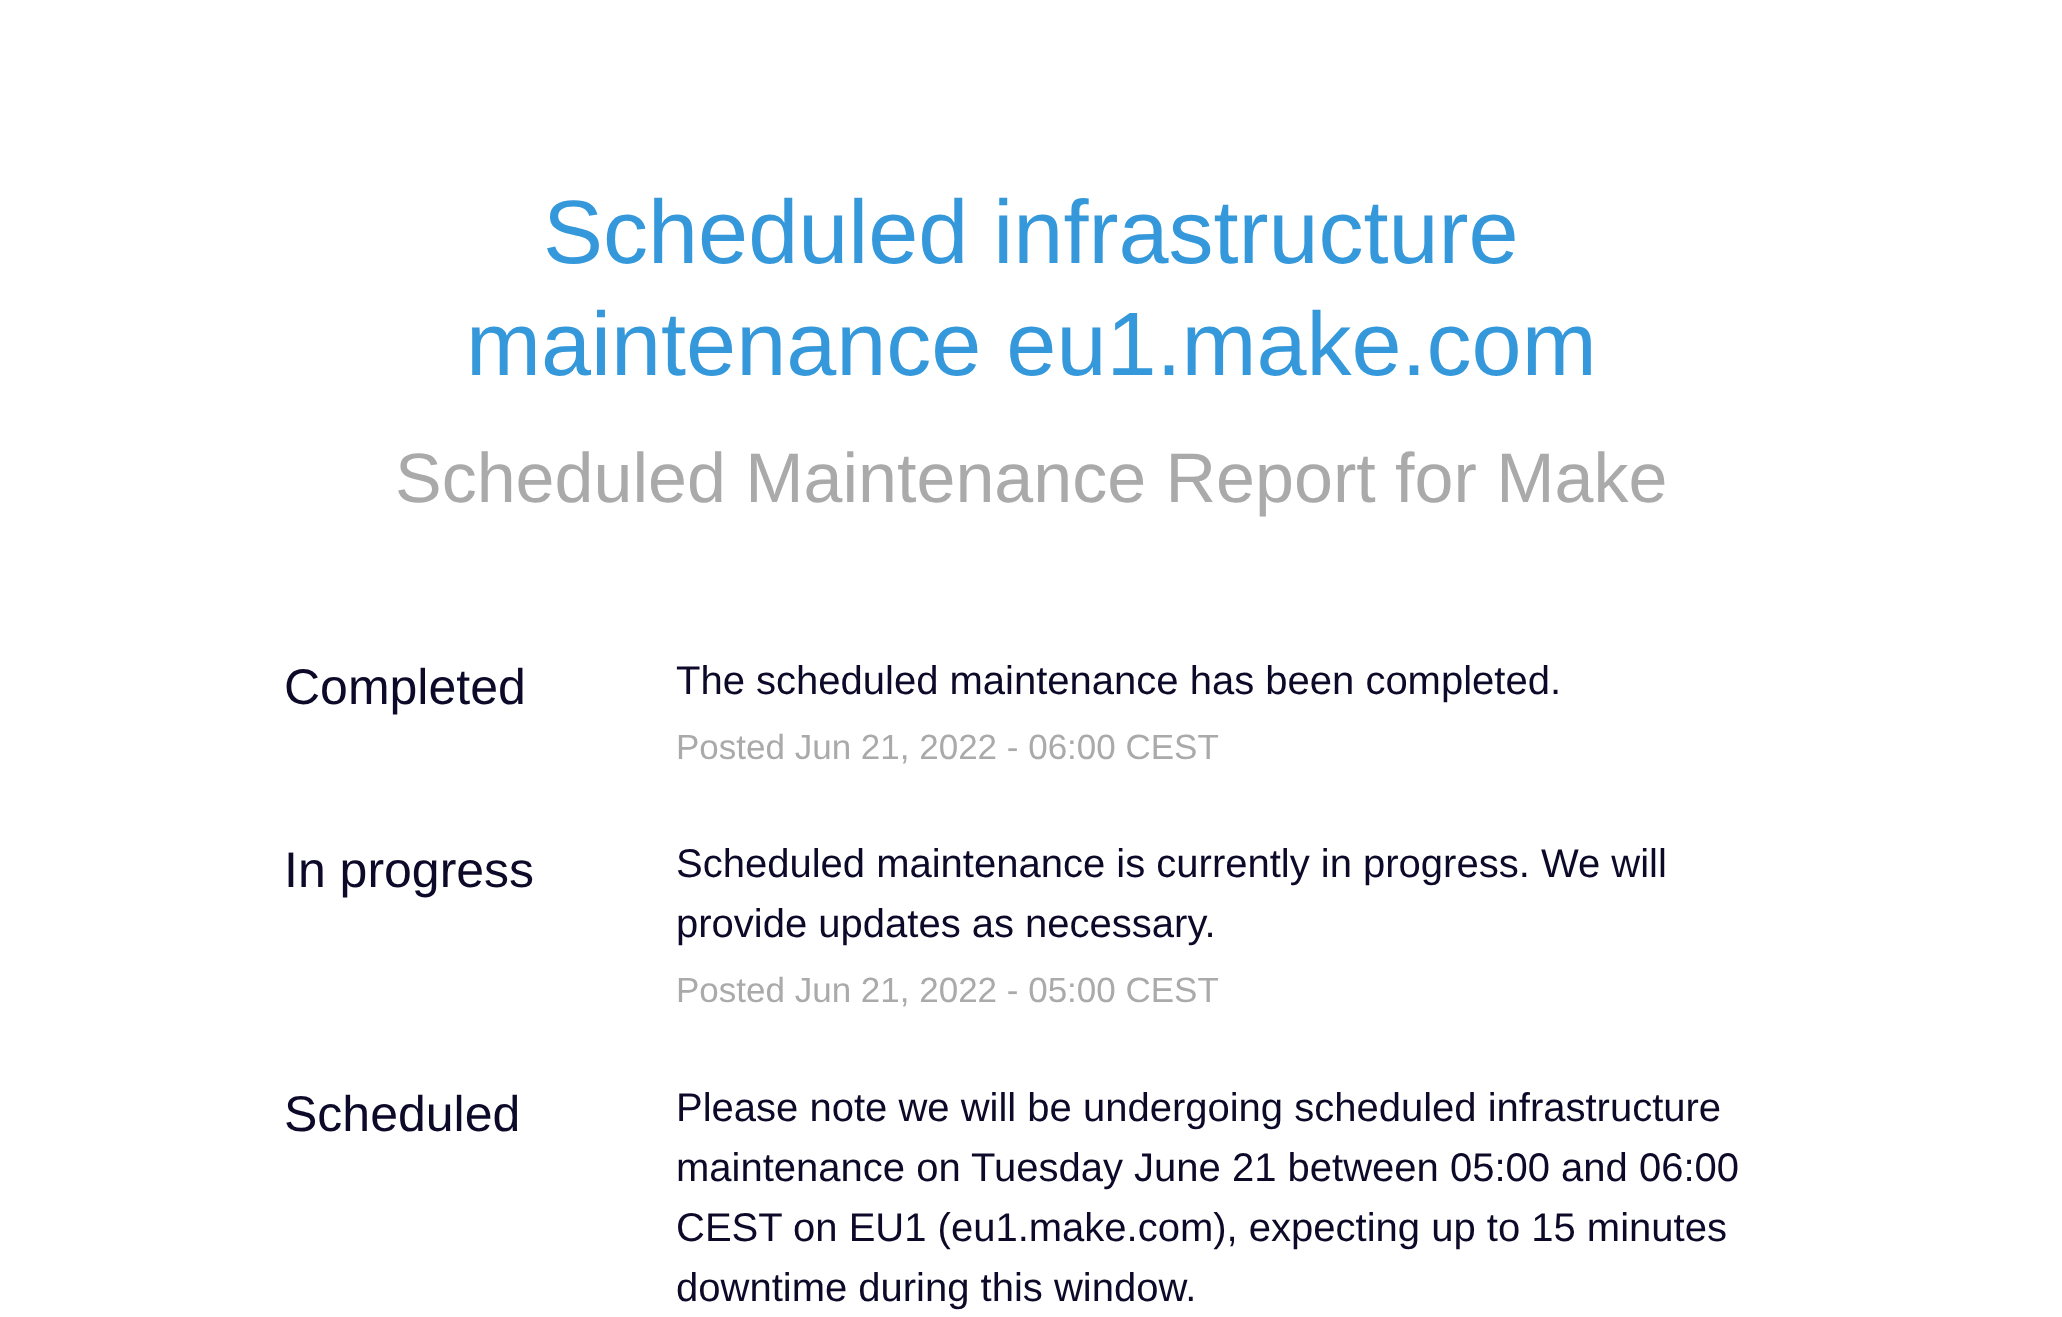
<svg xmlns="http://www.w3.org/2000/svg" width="2062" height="1317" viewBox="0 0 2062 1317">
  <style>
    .t1 { font: 90px Liberation Sans; fill: #3498db; }
    .t2 { font: 70px Liberation Sans; fill: #aaa; }
    .t3 { font: 50px Liberation Sans; fill: #0d0929; }
    .t4 { font: 40px Liberation Sans; fill: #0d0929; }
    .t5 { font: 35px Liberation Sans; fill: #aaa; }
  </style>
  <rect width="100%" height="100%" fill="#fff"/>
  <text x="543" y="263" class="t1">Scheduled infrastructure</text>
  <text x="466" y="375" class="t1">maintenance eu1.make.com</text>
  <text x="395" y="502" class="t2">Scheduled Maintenance Report for Make</text>
  <text x="284" y="704" class="t3">Completed</text>
  <text x="676" y="694" class="t4">The scheduled maintenance has been completed.</text>
  <text x="676" y="759" class="t5">Posted Jun 21, 2022 - 06:00 CEST</text>
  <text x="284" y="887" class="t3">In progress</text>
  <text x="676" y="877" class="t4">Scheduled maintenance is currently in progress. We will</text>
  <text x="676" y="937" class="t4">provide updates as necessary.</text>
  <text x="676" y="1002" class="t5">Posted Jun 21, 2022 - 05:00 CEST</text>
  <text x="284" y="1131" class="t3">Scheduled</text>
  <text x="676" y="1121" class="t4">Please note we will be undergoing scheduled infrastructure</text>
  <text x="676" y="1181" class="t4">maintenance on Tuesday June 21 between 05:00 and 06:00</text>
  <text x="676" y="1241" class="t4">CEST on EU1 (eu1.make.com), expecting up to 15 minutes</text>
  <text x="676" y="1301" class="t4">downtime during this window.</text>
</svg>
